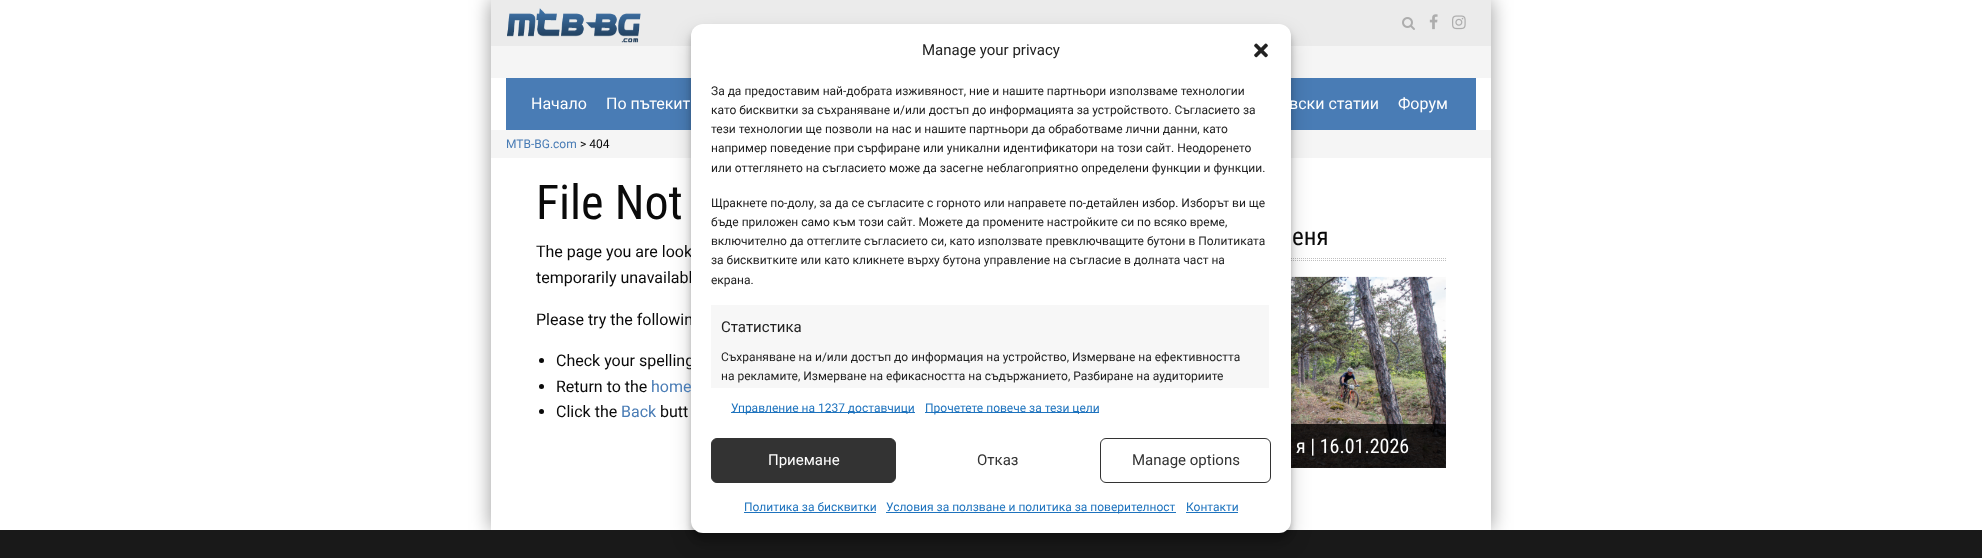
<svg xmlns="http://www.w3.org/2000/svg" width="1982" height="558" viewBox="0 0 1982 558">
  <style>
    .t1 { font: 16px Roboto; fill: #fefefe; }
    .t2 { font: 16px Roboto; fill: #0a0a0a; }
    .t3 { font: 16px Roboto; fill: #497cb5; }
    .t4 { font: 15px Roboto; fill: #222; }
    .t5 { font: 12px Roboto; fill: #222; }
    .t6 { font: 12px Roboto; fill: #1e73be; }
    .t7 { font: 15px Roboto; fill: #fefefe; }
    .t8 { font: 15px Roboto; fill: #333; }
    .t9 { font: 12px Roboto; fill: #497cb5; }
    .t10 { font: 12px Roboto; fill: #0a0a0a; }
    .t11 { font: 48px Roboto Condensed; fill: #0a0a0a; }
    .t12 { font: 25px Roboto Condensed; fill: #0a0a0a; }
    .t13 { font: 20px Roboto Condensed; fill: #fefefe; }
  </style>
  <defs>
    <clipPath id="clip1"><path d="M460 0H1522V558H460ZM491 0H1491V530H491Z" clip-rule="evenodd"/></clipPath>
  </defs>
  <rect width="100%" height="100%" fill="#fff"/>
  <g clip-path="url(#clip1)">
    <rect x="491" y="0" width="1000" height="530" fill="#00000066" filter="blur(10px)"/>
  </g>
  <rect x="491" y="0" width="1000" height="46" fill="#ebebeb"/>
  <rect x="491" y="46" width="1000" height="32" fill="#f5f5f5"/>
  <rect x="506" y="78" width="970" height="52" fill="#497cb5"/>
  <rect x="491" y="130" width="1000" height="28" fill="#f5f5f5"/>
  <path d="M1163 260.5H1446" fill="none" stroke="#bfbfbf" stroke-dasharray="1 1"/>
  <path d="M1163 258.5H1446" fill="none" stroke="#bfbfbf" stroke-dasharray="1 1"/>
  <image x="1291" y="276" width="155" height="192" href="images/6.png"/>
  <rect x="1291" y="424" width="155" height="44" fill="#000000cc"/>
  <rect x="0" y="530" width="1982" height="28" fill="#191919"/>
  <rect x="691" y="30" width="600" height="509" rx="12" fill="#0000003b" filter="blur(3px)"/>
  <rect x="691" y="34" width="600" height="509" rx="12" fill="#00000030" filter="blur(10px)"/>
  <text x="1289" y="109" class="t1">вски статии</text>
  <text x="536" y="257" class="t2">The page you are look</text>
  <text x="536" y="283" class="t2">temporarily unavailabl</text>
  <text x="536" y="325" class="t2">Please try the followin</text>
  <text x="556" y="366" class="t2">Check your spelling</text>
  <text x="651" y="392" class="t3">home</text>
  <rect x="691" y="24" width="600" height="509" rx="12" fill="#fff"/>
  <text x="922" y="55" class="t4">Manage your privacy</text>
  <image x="1254" y="43" width="14" height="15" href="images/1.png"/>
  <text x="711" y="95" class="t5">За да предоставим най-добрата изживяност, ние и нашите партньори използваме технологии</text>
  <text x="711" y="114" class="t5">като бисквитки за съхраняване и/или достъп до информацията за устройството. Съгласието за</text>
  <text x="711" y="133" class="t5">тези технологии ще позволи на нас и нашите партньори да обработваме лични данни, като</text>
  <text x="711" y="152" class="t5">например поведение при сърфиране или уникални идентификатори на този сайт. Неодоренето</text>
  <text x="711" y="172" class="t5">или оттеглянето на съгласието може да засегне неблагоприятно определени функции и функции.</text>
  <text x="711" y="207" class="t5">Щракнете по-долу, за да се съгласите с горното или направете по-детайлен избор. Изборът ви ще</text>
  <text x="711" y="226" class="t5">бъде приложен само към този сайт. Можете да промените настройките си по всяко време,</text>
  <text x="711" y="245" class="t5">включително да оттеглите съгласието си, като използвате превключващите бутони в Политиката</text>
  <text x="711" y="264" class="t5">за бисквитките или като кликнете върху бутона управление на съгласие в долната част на</text>
  <text x="711" y="284" class="t5">екрана.</text>
  <rect x="711" y="305" width="558" height="83" fill="#f7f7f7"/>
  <text x="721" y="332" class="t4">Статистика</text>
  <text x="721" y="361" class="t5">Съхраняване на и/или достъп до информация на устройство, Измерване на ефективността</text>
  <text x="721" y="380" class="t5">на рекламите, Измерване на ефикасността на съдържанието, Разбиране на аудиториите</text>
  <rect x="731" y="412" width="184" height="1" fill="#1e73be"/>
  <text x="731" y="412" class="t6">Управление на 1237 доставчици</text>
  <rect x="925" y="412" width="174" height="1" fill="#1e73be"/>
  <text x="925" y="412" class="t6">Прочетете повече за тези цели</text>
  <rect x="711.5" y="438.5" width="184" height="44" rx="5.5" fill="#333" stroke="#333"/>
  <text x="768" y="465" class="t7">Приемане</text>
  <text x="977" y="465" class="t8">Отказ</text>
  <rect x="1100.5" y="438.5" width="170" height="44" rx="5.5" fill="none" stroke="#333"/>
  <text x="1132" y="465" class="t8">Manage options</text>
  <text x="744" y="511" class="t6">Политика за бисквитки</text>
  <rect x="744" y="512" width="132" height="1" fill="#1e73be"/>
  <rect x="886" y="512" width="290" height="1" fill="#1e73be"/>
  <text x="886" y="511" class="t6">Условия за ползване и политика за поверителност</text>
  <text x="1186" y="511" class="t6">Контакти</text>
  <rect x="1186" y="512" width="52" height="1" fill="#1e73be"/>
  <image x="507" y="8" width="134" height="35" href="images/2.png"/>
  <image x="1402" y="17" width="13" height="13" href="images/3.png"/>
  <image x="1429" y="14" width="9" height="16" href="images/4.png"/>
  <image x="1452" y="15" width="14" height="15" href="images/5.png"/>
  <text x="531" y="109" class="t1">Начало</text>
  <text x="606" y="109" class="t1">По пътекит</text>
  <text x="1398" y="109" class="t1">Форум</text>
  <text x="506" y="148" class="t9">MTB-BG.com</text>
  <text x="580" y="148" class="t10">&gt; 404</text>
  <text x="536" y="219" class="t11">File Not</text>
  <circle cx="541.5" cy="360.5" r="2.5" fill="#0a0a0a"/>
  <circle cx="541.5" cy="386.5" r="2.5" fill="#0a0a0a"/>
  <text x="556" y="392" class="t2">Return to the</text>
  <circle cx="541.5" cy="411.5" r="2.5" fill="#0a0a0a"/>
  <text x="556" y="417" class="t2">Click the</text>
  <text x="621" y="417" class="t3">Back</text>
  <text x="660" y="417" class="t2">butt</text>
  <text x="1292" y="245" class="t12">еня</text>
  <text x="1296" y="453" class="t13">я | 16.01.2026</text>
</svg>
